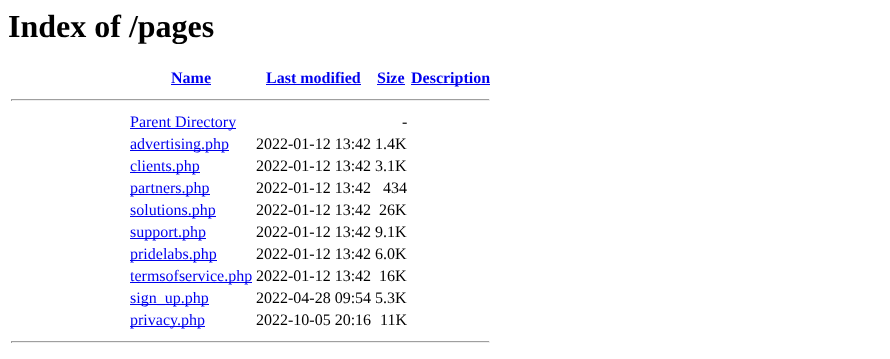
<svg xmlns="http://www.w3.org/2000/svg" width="890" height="359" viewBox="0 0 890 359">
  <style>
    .t1 { font: bold 32px Liberation Serif; fill: #000; }
    .t2 { font: bold 16px Liberation Serif; fill: #00e; }
    .t3 { font: 16px Liberation Serif; fill: #00e; }
    .t4 { font: 16px Liberation Serif; fill: #000; }
  </style>
  <rect width="100%" height="100%" fill="#fff"/>
  <text x="8" y="37" class="t1">Index of /pages</text>
  <text x="171" y="83" class="t2">Name</text>
  <rect x="171" y="84" width="40" height="1" fill="#00e"/>
  <text x="266" y="83" class="t2">Last modified</text>
  <rect x="266" y="84" width="95" height="1" fill="#00e"/>
  <text x="377" y="83" class="t2">Size</text>
  <rect x="377" y="84" width="28" height="1" fill="#00e"/>
  <rect x="411" y="84" width="79" height="1" fill="#00e"/>
  <text x="411" y="83" class="t2">Description</text>
  <rect x="11" y="99" width="479" height="1" fill="#9f9f9f"/>
  <rect x="489" y="99" width="1" height="2" fill="#eee"/>
  <rect x="11" y="100" width="479" height="1" fill="#eee"/>
  <rect x="11" y="99" width="1" height="2" fill="#9f9f9f"/>
  <rect x="130" y="128" width="106" height="1" fill="#00e"/>
  <text x="130" y="127" class="t3">Parent Directory</text>
  <text x="402" y="127" class="t4">-</text>
  <rect x="130" y="150" width="99" height="1" fill="#00e"/>
  <text x="130" y="149" class="t3">advertising.php</text>
  <text x="256" y="149" class="t4">2022-01-12 13:42 1.4K</text>
  <rect x="130" y="172" width="70" height="1" fill="#00e"/>
  <text x="130" y="171" class="t3">clients.php</text>
  <text x="256" y="171" class="t4">2022-01-12 13:42 3.1K</text>
  <rect x="130" y="194" width="80" height="1" fill="#00e"/>
  <text x="130" y="193" class="t3">partners.php</text>
  <text x="256" y="193" class="t4">2022-01-12 13:42</text>
  <text x="383" y="193" class="t4">434</text>
  <rect x="130" y="216" width="86" height="1" fill="#00e"/>
  <text x="130" y="215" class="t3">solutions.php</text>
  <text x="256" y="215" class="t4">2022-01-12 13:42</text>
  <text x="379" y="215" class="t4">26K</text>
  <rect x="130" y="238" width="76" height="1" fill="#00e"/>
  <text x="130" y="237" class="t3">support.php</text>
  <text x="256" y="237" class="t4">2022-01-12 13:42 9.1K</text>
  <rect x="130" y="260" width="87" height="1" fill="#00e"/>
  <text x="130" y="259" class="t3">pridelabs.php</text>
  <text x="256" y="259" class="t4">2022-01-12 13:42 6.0K</text>
  <rect x="130" y="282" width="122" height="1" fill="#00e"/>
  <text x="130" y="281" class="t3">termsofservice.php</text>
  <text x="256" y="281" class="t4">2022-01-12 13:42</text>
  <text x="379" y="281" class="t4">16K</text>
  <rect x="130" y="304" width="79" height="1" fill="#00e"/>
  <text x="130" y="303" class="t3">sign_up.php</text>
  <text x="256" y="303" class="t4">2022-04-28 09:54 5.3K</text>
  <rect x="130" y="326" width="75" height="1" fill="#00e"/>
  <text x="130" y="325" class="t3">privacy.php</text>
  <text x="256" y="325" class="t4">2022-10-05 20:16</text>
  <text x="380" y="325" class="t4">11K</text>
  <rect x="11" y="341" width="479" height="1" fill="#9f9f9f"/>
  <rect x="489" y="341" width="1" height="2" fill="#eee"/>
  <rect x="11" y="342" width="479" height="1" fill="#eee"/>
  <rect x="11" y="341" width="1" height="2" fill="#9f9f9f"/>
</svg>
